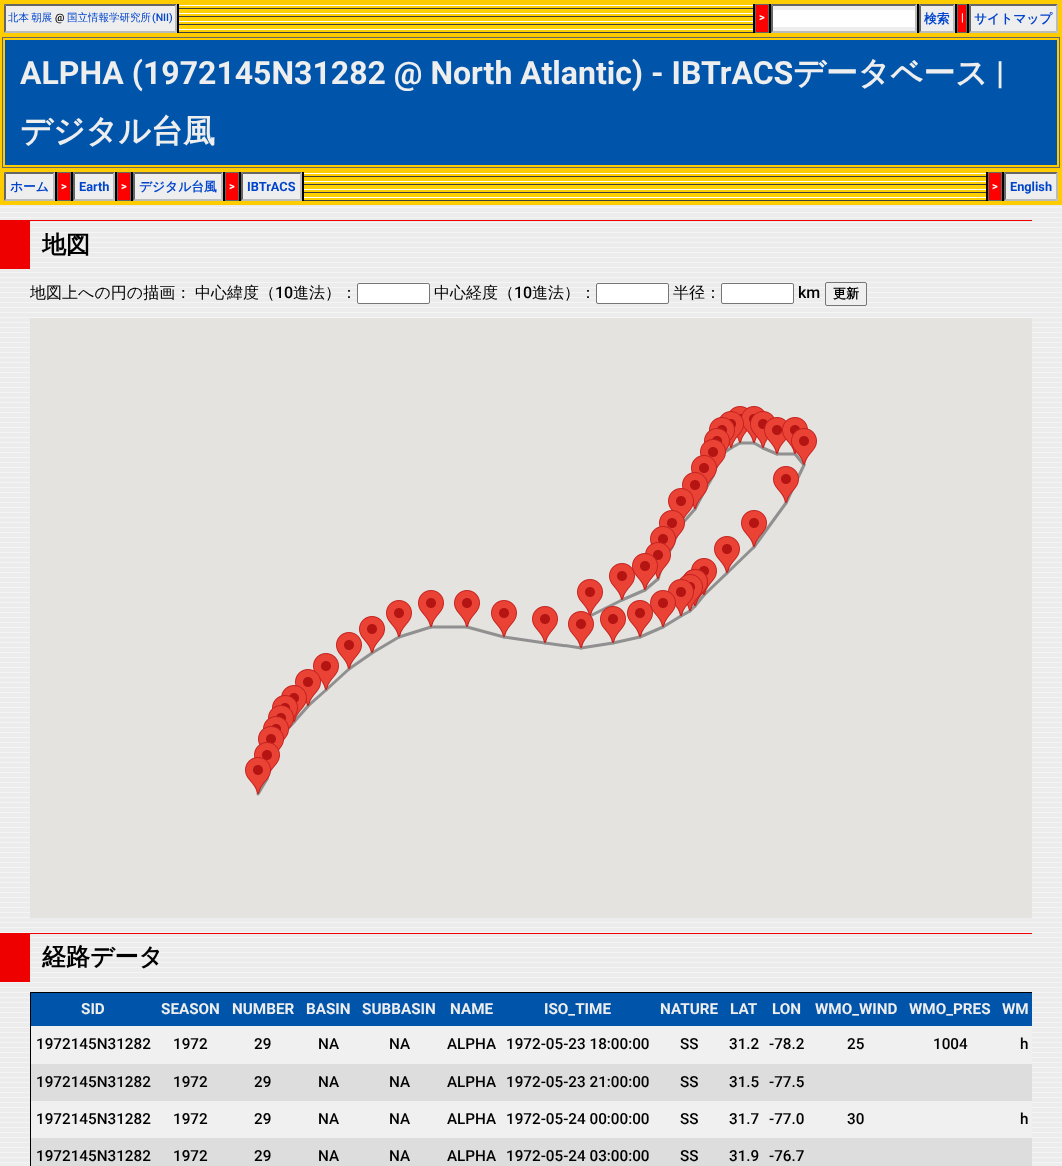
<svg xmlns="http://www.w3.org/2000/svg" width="1062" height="1166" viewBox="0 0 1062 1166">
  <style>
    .t1 { font: 500 10.5px WenQuanYi Zen Hei; fill: #04c; }
    .t2 { font: 500 10.5px Roboto; fill: #000; }
    .t3 { font: 500 10.5px Roboto; fill: #04c; }
    .t4 { font: bold 11px Roboto; fill: #fff; }
    .t5 { font: bold 12.75px WenQuanYi Zen Hei; fill: #04c; }
    .t6 { font: bold 32px Roboto; fill: #eee; }
    .t7 { font: bold 32px WenQuanYi Zen Hei; fill: #eee; }
    .t8 { font: bold 12.75px Roboto; fill: #04c; }
    .t9 { font: bold 24px WenQuanYi Zen Hei; fill: #000; }
    .t10 { font: 500 16px WenQuanYi Zen Hei; fill: #000; }
    .t11 { font: 500 16px Roboto; fill: #000; }
    .t12 { font: bold 13px WenQuanYi Zen Hei; fill: #000; }
    .t13 { font: bold 15.25px Roboto; fill: #eee; }
    .t14 { font: 500 15.25px Roboto; fill: #000; }
  </style>
  <defs>
    <clipPath id="clip1"><rect x="30" y="992" width="1002" height="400"/></clipPath>
  </defs>
  <rect width="100%" height="100%" fill="#eee"/>
  <image x="0" y="205" width="1062" height="958" href="images/1.png"/>
  <rect x="0" y="0" width="1062" height="205" fill="#fc0"/>
  <rect x="177" y="4" width="792" height="29" fill="#000"/>
  <rect x="4" y="4" width="173" height="29" fill="#eee"/>
  <path d="M4 4H177L175 6H6Z" fill="#666"/>
  <path d="M177 4V33L175 31V6Z" fill="#bbb"/>
  <path d="M177 33H4L6 31H175Z" fill="#bbb"/>
  <path d="M4 33V4L6 6V31Z" fill="#666"/>
  <text x="8" y="21" word-spacing="-1" class="t1">北本 朝展</text>
  <text x="55" y="21" class="t2">@</text>
  <text x="67" y="21" class="t1">国立情報学研究所</text>
  <text x="152" y="21" class="t3">(NII)</text>
  <rect x="179" y="4" width="574" height="1" fill="#fc0"/>
  <image x="179" y="5" width="574" height="28" href="images/2.png"/>
  <rect x="755.5" y="4.5" width="13" height="28" fill="#f00" stroke="#666"/>
  <text x="759" y="21" class="t4">&gt;</text>
  <rect x="771" y="4" width="146" height="29" fill="#eee"/>
  <path d="M771 4H917L915 6H773Z" fill="#666"/>
  <path d="M917 4V33L915 31V6Z" fill="#bbb"/>
  <path d="M917 33H771L773 31H915Z" fill="#bbb"/>
  <path d="M771 33V4L773 6V31Z" fill="#666"/>
  <rect x="773" y="10" width="142" height="17" fill="#fff"/>
  <rect x="919" y="4" width="36" height="29" fill="#eee"/>
  <path d="M919 4H955L953 6H921Z" fill="#666"/>
  <path d="M955 4V33L953 31V6Z" fill="#bbb"/>
  <path d="M955 33H919L921 31H953Z" fill="#bbb"/>
  <path d="M919 33V4L921 6V31Z" fill="#666"/>
  <text x="924" y="23" class="t5">検索</text>
  <rect x="957.5" y="4.5" width="9" height="28" fill="#f00" stroke="#666"/>
  <text x="961" y="21" class="t4">|</text>
  <rect x="969" y="4" width="89" height="29" fill="#eee"/>
  <path d="M969 4H1058L1056 6H971Z" fill="#666"/>
  <path d="M1058 4V33L1056 31V6Z" fill="#bbb"/>
  <path d="M1058 33H969L971 31H1056Z" fill="#bbb"/>
  <path d="M969 33V4L971 6V31Z" fill="#666"/>
  <text x="974" y="23" class="t5">サイトマップ</text>
  <rect x="2.5" y="37.5" width="1057" height="130" fill="none" stroke="#666"/>
  <rect x="5" y="40" width="1052" height="125" fill="#05a"/>
  <text x="20" y="84" class="t6">ALPHA (1972145N31282 @ North Atlantic) - IBTrACS</text>
  <text x="793" y="84" class="t7">データベース</text>
  <text x="996" y="84" class="t6">|</text>
  <text x="20" y="142" class="t7">デジタル台風</text>
  <rect x="55" y="172" width="949" height="29" fill="#000"/>
  <rect x="4" y="172" width="51" height="29" fill="#eee"/>
  <path d="M4 172H55L53 174H6Z" fill="#666"/>
  <path d="M55 172V201L53 199V174Z" fill="#bbb"/>
  <path d="M55 201H4L6 199H53Z" fill="#bbb"/>
  <path d="M4 201V172L6 174V199Z" fill="#666"/>
  <text x="10" y="191" class="t5">ホーム</text>
  <rect x="57.5" y="172.5" width="13" height="28" fill="#f00" stroke="#666"/>
  <text x="61" y="190" class="t4">&gt;</text>
  <rect x="73" y="172" width="42" height="29" fill="#eee"/>
  <path d="M73 172H115L113 174H75Z" fill="#666"/>
  <path d="M115 172V201L113 199V174Z" fill="#bbb"/>
  <path d="M115 201H73L75 199H113Z" fill="#bbb"/>
  <path d="M73 201V172L75 174V199Z" fill="#666"/>
  <text x="79" y="191" class="t8">Earth</text>
  <rect x="117.5" y="172.5" width="13" height="28" fill="#f00" stroke="#666"/>
  <text x="121" y="190" class="t4">&gt;</text>
  <rect x="133" y="172" width="90" height="29" fill="#eee"/>
  <path d="M133 172H223L221 174H135Z" fill="#666"/>
  <path d="M223 172V201L221 199V174Z" fill="#bbb"/>
  <path d="M223 201H133L135 199H221Z" fill="#bbb"/>
  <path d="M133 201V172L135 174V199Z" fill="#666"/>
  <text x="139" y="191" class="t5">デジタル台風</text>
  <rect x="225.5" y="172.5" width="13" height="28" fill="#f00" stroke="#666"/>
  <text x="229" y="190" class="t4">&gt;</text>
  <rect x="241" y="172" width="61" height="29" fill="#eee"/>
  <path d="M241 172H302L300 174H243Z" fill="#666"/>
  <path d="M302 172V201L300 199V174Z" fill="#bbb"/>
  <path d="M302 201H241L243 199H300Z" fill="#bbb"/>
  <path d="M241 201V172L243 174V199Z" fill="#666"/>
  <text x="247" y="191" class="t8">IBTrACS</text>
  <rect x="304" y="172" width="682" height="1" fill="#fc0"/>
  <image x="304" y="173" width="682" height="28" href="images/3.png"/>
  <rect x="988.5" y="172.5" width="13" height="28" fill="#f00" stroke="#666"/>
  <text x="992" y="190" class="t4">&gt;</text>
  <rect x="1004" y="172" width="54" height="29" fill="#eee"/>
  <path d="M1004 172H1058L1056 174H1006Z" fill="#666"/>
  <path d="M1058 172V201L1056 199V174Z" fill="#bbb"/>
  <path d="M1058 201H1004L1006 199H1056Z" fill="#bbb"/>
  <path d="M1004 201V172L1006 174V199Z" fill="#666"/>
  <text x="1010" y="191" class="t8">English</text>
  <rect x="30" y="220" width="1002" height="1" fill="#e00"/>
  <rect x="0" y="220" width="30" height="49" fill="#e00"/>
  <text x="42" y="253" class="t9">地図</text>
  <text x="30" y="298" class="t10">地図上への円の描画：</text>
  <text x="195" y="298" class="t10">中心緯度（</text>
  <text x="275" y="298" class="t11">10</text>
  <text x="293" y="298" class="t10">進法）：</text>
  <rect x="357.5" y="283.5" width="72" height="20" rx="1.5" fill="#fff" stroke="#767676"/>
  <text x="434" y="298" class="t10">中心経度（</text>
  <text x="514" y="298" class="t11">10</text>
  <text x="532" y="298" class="t10">進法）：</text>
  <rect x="596.5" y="283.5" width="72" height="20" rx="1.5" fill="#fff" stroke="#767676"/>
  <text x="673" y="298" class="t10">半径：</text>
  <rect x="721.5" y="283.5" width="72" height="20" rx="1.5" fill="#fff" stroke="#767676"/>
  <text x="798" y="298" class="t11">km</text>
  <rect x="825.5" y="282.5" width="41" height="23" rx="1.5" fill="#efefef" stroke="#767676"/>
  <text x="833" y="298" class="t12">更新</text>
  <rect x="30" y="318" width="1002" height="600" fill="#e5e3df"/>
  <image x="659" y="441" width="147" height="135" href="images/51.png"/>
  <image x="729" y="406" width="18" height="37" href="images/4.png"/>
  <image x="741" y="406" width="24" height="37" href="images/5.png"/>
  <image x="719" y="411" width="25" height="37" href="images/6.png"/>
  <image x="750" y="411" width="25" height="37" href="images/7.png"/>
  <image x="709" y="417" width="26" height="25" href="images/8.png"/>
  <image x="764" y="417" width="23" height="37" href="images/9.png"/>
  <image x="782" y="417" width="26" height="37" href="images/10.png"/>
  <image x="704" y="428" width="26" height="24" href="images/11.png"/>
  <image x="791" y="428" width="26" height="37" href="images/12.png"/>
  <image x="700" y="439" width="26" height="31" href="images/13.png"/>
  <image x="691" y="455" width="26" height="31" href="images/14.png"/>
  <image x="773" y="466" width="26" height="37" href="images/15.png"/>
  <image x="682" y="472" width="26" height="37" href="images/17.png"/>
  <image x="668" y="488" width="26" height="31" href="images/16.png"/>
  <image x="659" y="510" width="26" height="31" href="images/18.png"/>
  <image x="741" y="510" width="26" height="37" href="images/19.png"/>
  <image x="650" y="526" width="26" height="25" href="images/20.png"/>
  <image x="714" y="536" width="26" height="37" href="images/21.png"/>
  <image x="565" y="576" width="161" height="74" href="images/52.png"/>
  <image x="645" y="542" width="26" height="37" href="images/22.png"/>
  <image x="632" y="553" width="26" height="37" href="images/24.png"/>
  <image x="609" y="563" width="26" height="37" href="images/23.png"/>
  <image x="691" y="558" width="26" height="37" href="images/25.png"/>
  <image x="683" y="569" width="25" height="37" href="images/26.png"/>
  <image x="683" y="569" width="25" height="37" href="images/27.png"/>
  <image x="577" y="579" width="26" height="37" href="images/28.png"/>
  <image x="679" y="574" width="24" height="37" href="images/29.png"/>
  <image x="309" y="625" width="256" height="82" href="images/53.png"/>
  <image x="359" y="616" width="26" height="37" href="images/34.png"/>
  <image x="336" y="632" width="26" height="37" href="images/33.png"/>
  <image x="313" y="653" width="26" height="37" href="images/32.png"/>
  <image x="256" y="705" width="53" height="91" href="images/54.png"/>
  <image x="295" y="669" width="26" height="37" href="images/31.png"/>
  <image x="281" y="685" width="26" height="37" href="images/30.png"/>
  <image x="386" y="600" width="26" height="37" href="images/35.png"/>
  <image x="418" y="590" width="26" height="37" href="images/36.png"/>
  <image x="454" y="590" width="26" height="37" href="images/37.png"/>
  <image x="491" y="600" width="26" height="37" href="images/38.png"/>
  <image x="532" y="606" width="26" height="37" href="images/39.png"/>
  <image x="568" y="611" width="26" height="37" href="images/40.png"/>
  <image x="600" y="606" width="26" height="37" href="images/41.png"/>
  <image x="668" y="579" width="26" height="37" href="images/44.png"/>
  <image x="650" y="590" width="26" height="37" href="images/43.png"/>
  <image x="627" y="600" width="26" height="37" href="images/42.png"/>
  <image x="272" y="695" width="26" height="24" href="images/45.png"/>
  <image x="268" y="705" width="26" height="25" href="images/46.png"/>
  <image x="263" y="716" width="26" height="25" href="images/47.png"/>
  <image x="258" y="726" width="26" height="24" href="images/48.png"/>
  <image x="254" y="742" width="26" height="37" href="images/49.png"/>
  <image x="245" y="757" width="26" height="37" href="images/50.png"/>
  <rect x="30" y="933" width="1002" height="1" fill="#e00"/>
  <rect x="0" y="933" width="30" height="49" fill="#e00"/>
  <text x="42" y="965" class="t9">経路データ</text>
  <g clip-path="url(#clip1)">
    <rect x="30.5" y="992.5" width="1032" height="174" fill="none" stroke="#000"/>
  </g>
  <rect x="31" y="993" width="1001" height="33" fill="#05a"/>
  <text x="81" y="1014" class="t13">SID</text>
  <text x="161" y="1014" class="t13">SEASON</text>
  <text x="232" y="1014" class="t13">NUMBER</text>
  <text x="306" y="1014" class="t13">BASIN</text>
  <text x="362" y="1014" class="t13">SUBBASIN</text>
  <text x="450" y="1014" class="t13">NAME</text>
  <text x="544" y="1014" class="t13">ISO_TIME</text>
  <text x="660" y="1014" class="t13">NATURE</text>
  <text x="730" y="1014" class="t13">LAT</text>
  <text x="772" y="1014" class="t13">LON</text>
  <text x="815" y="1014" class="t13">WMO_WIND</text>
  <text x="909" y="1014" class="t13">WMO_PRES</text>
  <text x="1002" y="1014" class="t13">WM</text>
  <rect x="31" y="1026" width="1001" height="38" fill="#f0f0f0"/>
  <text x="36" y="1049" class="t14">1972145N31282</text>
  <text x="173" y="1049" class="t14">1972</text>
  <text x="254" y="1049" class="t14">29</text>
  <text x="318" y="1049" class="t14">NA</text>
  <text x="389" y="1049" class="t14">NA</text>
  <text x="447" y="1049" class="t14">ALPHA</text>
  <text x="506" y="1049" class="t14">1972-05-23 18:00:00</text>
  <text x="680" y="1049" class="t14">SS</text>
  <text x="729" y="1049" class="t14">31.2</text>
  <text x="769" y="1049" class="t14">-78.2</text>
  <text x="847" y="1049" class="t14">25</text>
  <text x="933" y="1049" class="t14">1004</text>
  <text x="1020" y="1049" class="t14">h</text>
  <rect x="31" y="1064" width="1001" height="37" fill="#ddd"/>
  <text x="36" y="1087" class="t14">1972145N31282</text>
  <text x="173" y="1087" class="t14">1972</text>
  <text x="254" y="1087" class="t14">29</text>
  <text x="318" y="1087" class="t14">NA</text>
  <text x="389" y="1087" class="t14">NA</text>
  <text x="447" y="1087" class="t14">ALPHA</text>
  <text x="506" y="1087" class="t14">1972-05-23 21:00:00</text>
  <text x="680" y="1087" class="t14">SS</text>
  <text x="729" y="1087" class="t14">31.5</text>
  <text x="769" y="1087" class="t14">-77.5</text>
  <rect x="31" y="1101" width="1001" height="37" fill="#f0f0f0"/>
  <text x="36" y="1124" class="t14">1972145N31282</text>
  <text x="173" y="1124" class="t14">1972</text>
  <text x="254" y="1124" class="t14">29</text>
  <text x="318" y="1124" class="t14">NA</text>
  <text x="389" y="1124" class="t14">NA</text>
  <text x="447" y="1124" class="t14">ALPHA</text>
  <text x="506" y="1124" class="t14">1972-05-24 00:00:00</text>
  <text x="680" y="1124" class="t14">SS</text>
  <text x="729" y="1124" class="t14">31.7</text>
  <text x="769" y="1124" class="t14">-77.0</text>
  <text x="847" y="1124" class="t14">30</text>
  <text x="1020" y="1124" class="t14">h</text>
  <rect x="31" y="1138" width="1001" height="28" fill="#ddd"/>
  <text x="36" y="1161" class="t14">1972145N31282</text>
  <text x="173" y="1161" class="t14">1972</text>
  <text x="254" y="1161" class="t14">29</text>
  <text x="318" y="1161" class="t14">NA</text>
  <text x="389" y="1161" class="t14">NA</text>
  <text x="447" y="1161" class="t14">ALPHA</text>
  <text x="506" y="1161" class="t14">1972-05-24 03:00:00</text>
  <text x="680" y="1161" class="t14">SS</text>
  <text x="729" y="1161" class="t14">31.9</text>
  <text x="769" y="1161" class="t14">-76.7</text>
</svg>
